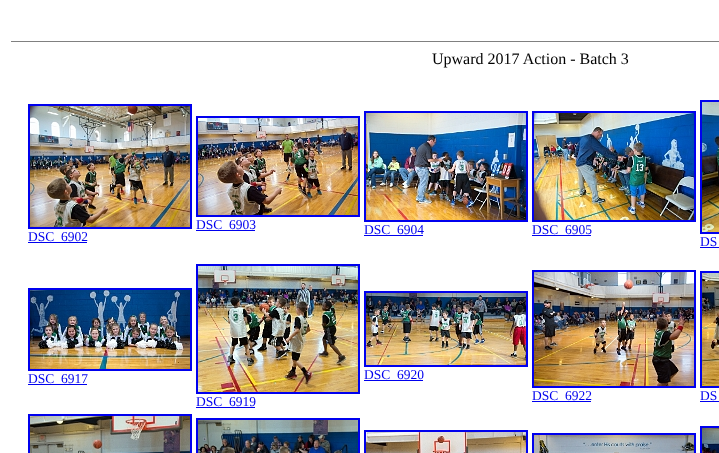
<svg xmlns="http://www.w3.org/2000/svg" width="719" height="453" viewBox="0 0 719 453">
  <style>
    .t1 { font: 16px Liberation Serif; fill: #000; }
    .t2 { font: 13.5px Liberation Serif; fill: #00e; }
  </style>
  <rect width="100%" height="100%" fill="#fff"/>
  <rect x="11" y="41" width="708" height="1" fill="#808080"/>
  <text x="432" y="64" class="t1">Upward 2017 Action - Batch 3</text>
  <rect x="197" y="117" width="162" height="99" fill="none" stroke="#00e" stroke-width="2"/>
  <image x="198" y="118" width="160" height="97" href="images/1.png"/>
  <rect x="196" y="230" width="59" height="1" fill="#00e"/>
  <text x="196" y="229" class="t2">DSC_6903</text>
  <rect x="365" y="112" width="162" height="109" fill="none" stroke="#00e" stroke-width="2"/>
  <image x="366" y="113" width="160" height="107" href="images/2.png"/>
  <rect x="364" y="235" width="59" height="1" fill="#00e"/>
  <text x="364" y="234" class="t2">DSC_6904</text>
  <rect x="533" y="112" width="162" height="109" fill="none" stroke="#00e" stroke-width="2"/>
  <image x="534" y="113" width="160" height="107" href="images/3.png"/>
  <rect x="532" y="235" width="59" height="1" fill="#00e"/>
  <text x="532" y="234" class="t2">DSC_6905</text>
  <rect x="29" y="105" width="162" height="123" fill="none" stroke="#00e" stroke-width="2"/>
  <image x="30" y="106" width="160" height="121" href="images/4.png"/>
  <rect x="28" y="242" width="59" height="1" fill="#00e"/>
  <text x="28" y="241" class="t2">DSC_6902</text>
  <rect x="701" y="101" width="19" height="132" fill="none" stroke="#00e" stroke-width="2"/>
  <image x="702" y="102" width="17" height="130" href="images/5.png"/>
  <text x="700" y="246" class="t2">DS</text>
  <rect x="700" y="247" width="19" height="1" fill="#00e"/>
  <rect x="29" y="289" width="162" height="81" fill="none" stroke="#00e" stroke-width="2"/>
  <image x="30" y="290" width="160" height="79" href="images/6.png"/>
  <rect x="28" y="384" width="59" height="1" fill="#00e"/>
  <text x="28" y="383" class="t2">DSC_6917</text>
  <rect x="365" y="292" width="162" height="74" fill="none" stroke="#00e" stroke-width="2"/>
  <image x="366" y="293" width="160" height="72" href="images/7.png"/>
  <rect x="364" y="380" width="59" height="1" fill="#00e"/>
  <text x="364" y="379" class="t2">DSC_6920</text>
  <rect x="533" y="271" width="162" height="116" fill="none" stroke="#00e" stroke-width="2"/>
  <image x="534" y="272" width="160" height="114" href="images/8.png"/>
  <rect x="532" y="401" width="59" height="1" fill="#00e"/>
  <text x="532" y="400" class="t2">DSC_6922</text>
  <rect x="701" y="272" width="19" height="115" fill="none" stroke="#00e" stroke-width="2"/>
  <image x="702" y="273" width="17" height="113" href="images/9.png"/>
  <text x="700" y="400" class="t2">DS</text>
  <rect x="700" y="401" width="19" height="1" fill="#00e"/>
  <rect x="197" y="265" width="162" height="128" fill="none" stroke="#00e" stroke-width="2"/>
  <image x="198" y="266" width="160" height="126" href="images/10.png"/>
  <rect x="196" y="407" width="59" height="1" fill="#00e"/>
  <text x="196" y="406" class="t2">DSC_6919</text>
  <rect x="29" y="415" width="162" height="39" fill="none" stroke="#00e" stroke-width="2"/>
  <image x="30" y="416" width="160" height="37" href="images/11.png"/>
  <rect x="197" y="419" width="162" height="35" fill="none" stroke="#00e" stroke-width="2"/>
  <image x="198" y="420" width="160" height="33" href="images/12.png"/>
  <rect x="365" y="431" width="162" height="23" fill="none" stroke="#00e" stroke-width="2"/>
  <image x="366" y="432" width="160" height="21" href="images/13.png"/>
  <rect x="533" y="434" width="162" height="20" fill="none" stroke="#00e" stroke-width="2"/>
  <image x="534" y="435" width="160" height="18" href="images/14.png"/>
  <rect x="701" y="427" width="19" height="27" fill="none" stroke="#00e" stroke-width="2"/>
  <image x="702" y="428" width="17" height="25" href="images/15.png"/>
</svg>
